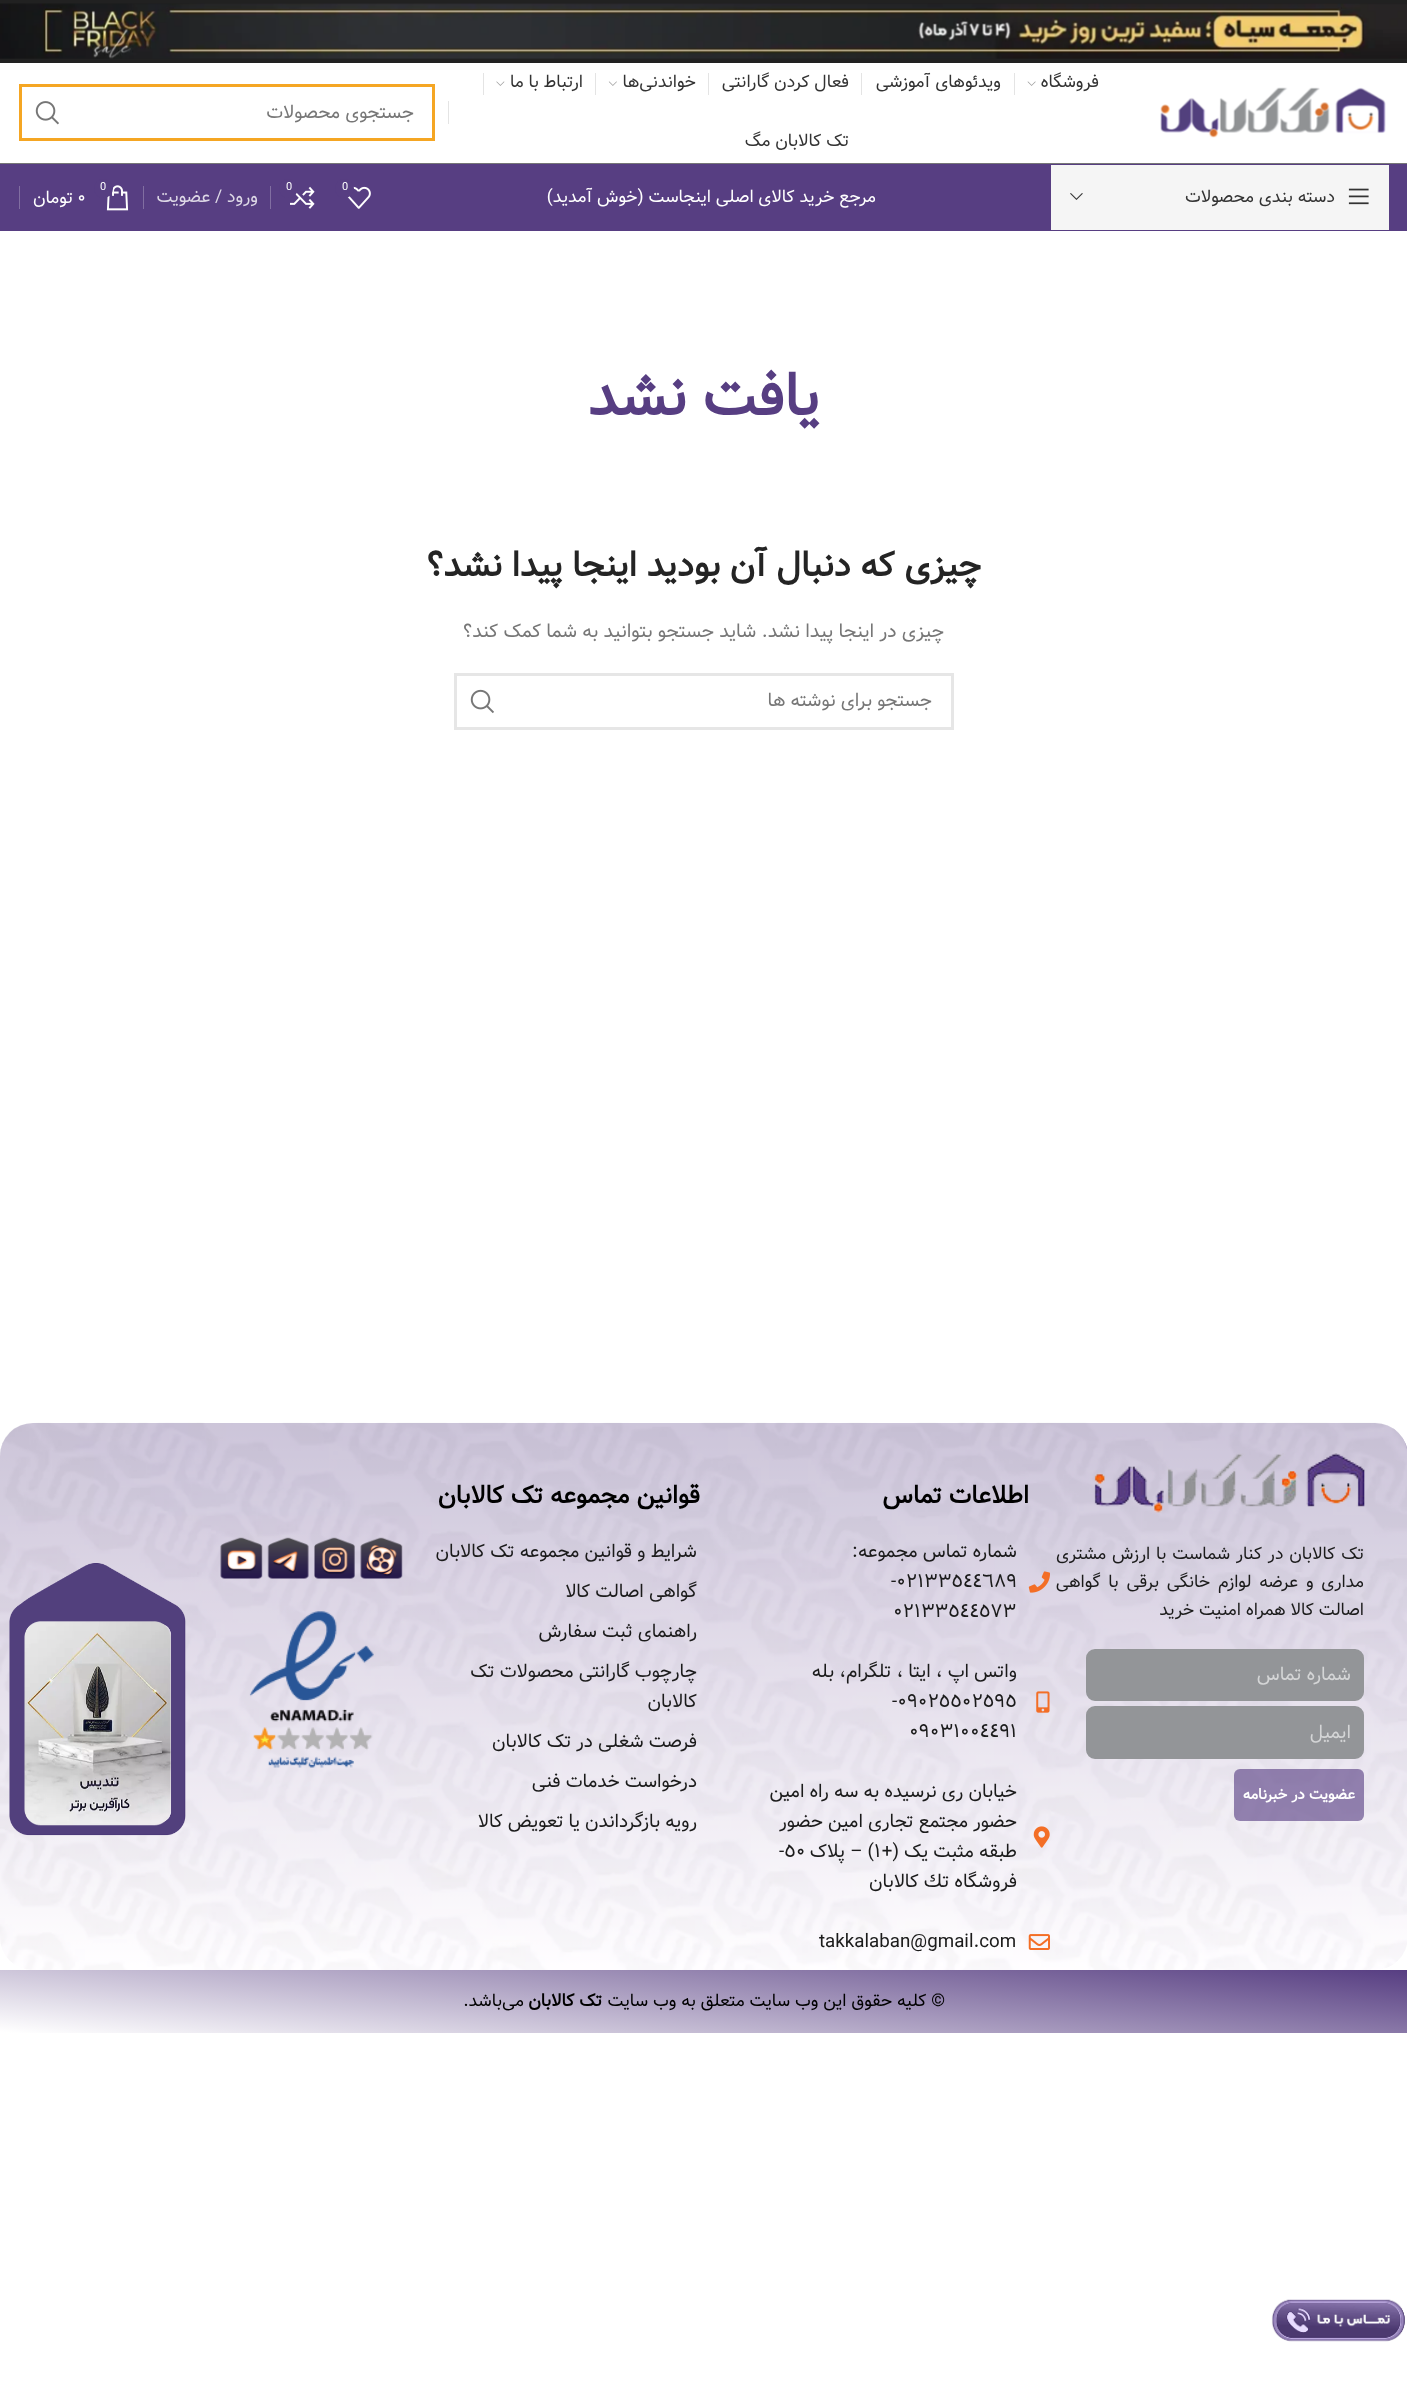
<svg xmlns="http://www.w3.org/2000/svg" width="1407" height="2381" viewBox="0 0 1407 2381">
  <style>
    .t1 { font: 17.5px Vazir; direction: rtl; fill: #333; }
    .t2 { font: 18.75px Vazir; direction: rtl; fill: #777; }
    .t3 { font: 17.5px Vazir; direction: rtl; fill: #fff; }
    .t4 { font: 11px Vazir; fill: #fff; }
    .t5 { font: 17.5px Vazir; direction: rtl; fill: #ddd8e6; }
    .t6 { font: 17.5px Vazir; fill: #fff; }
    .t7 { font: bold 59px Vazir; direction: rtl; fill: #573e82; }
    .t8 { font: bold 35px Vazir; direction: rtl; fill: #242424; }
    .t9 { font: 19.25px Vazir; direction: rtl; fill: #777; }
    .t10 { font: 17.5px Vazir; direction: rtl; fill: #1b1b1b; }
    .t11 { font: 18.75px Vazir; direction: rtl; fill: #d4d5d6; }
    .t12 { font: bold 15px Vazir; direction: rtl; fill: #fff; }
    .t13 { font: bold 25px Vazir; direction: rtl; fill: #000; }
    .t14 { font: 18.75px Vazir; direction: rtl; fill: #1b1b1b; }
    .t15 { font: 18.75px Vazir; fill: #1b1b1b; }
    .t16 { font: 17.5px Vazir; direction: rtl; fill: #000; }
    .t17 { font: bold 17.5px Vazir; direction: rtl; fill: #000; }
  </style>
  <defs>
    <linearGradient id="g1" gradientUnits="userSpaceOnUse" x1="704" y1="1423" x2="704" y2="1970"><stop offset="0" stop-color="#9b8cb4"/><stop offset="1" stop-color="#fff"/></linearGradient>
    <linearGradient id="g2" gradientUnits="userSpaceOnUse" x1="715" y1="1897" x2="693" y2="2105"><stop offset="0" stop-color="#573e82"/><stop offset="1" stop-color="#fff"/></linearGradient>
  </defs>
  <rect width="100%" height="100%" fill="#fff"/>
  <rect x="0" y="0" width="1407" height="63" fill="#212121"/>
  <image x="0" y="3" width="1407" height="56" href="images/1.png"/>
  <rect x="0" y="163" width="1407" height="1" fill="#777"/>
  <image x="1160" y="87" width="226" height="51" href="images/2.png"/>
  <text x="1099" y="87" class="t1">فروشگاه</text>
  <image x="1027" y="81" width="9" height="5" href="images/3.png"/>
  <rect x="1014" y="73" width="1" height="22" fill="#e4e4e4"/>
  <text x="1001" y="87" class="t1">ویدئوهای آموزشی</text>
  <rect x="861" y="73" width="1" height="22" fill="#e4e4e4"/>
  <text x="849" y="87" class="t1">فعال کردن گارانتی</text>
  <rect x="708" y="73" width="1" height="22" fill="#e4e4e4"/>
  <text x="696" y="87" class="t1">خواندنی‌ها</text>
  <image x="608" y="81" width="9" height="5" href="images/4.png"/>
  <rect x="595" y="73" width="1" height="22" fill="#e4e4e4"/>
  <text x="583" y="87" class="t1">ارتباط با ما</text>
  <image x="496" y="81" width="9" height="5" href="images/5.png"/>
  <rect x="483" y="73" width="1" height="22" fill="#e4e4e4"/>
  <text x="849" y="146" class="t1">تک کالابان مگ</text>
  <rect x="448" y="101" width="1" height="23" fill="#e4e4e4"/>
  <rect x="20.5" y="85.5" width="413" height="54" fill="none" stroke="#f5a623" stroke-width="3"/>
  <text x="414" y="118" class="t2">جستجوی محصولات</text>
  <image x="35" y="101" width="24" height="24" href="images/6.png"/>
  <rect x="0" y="164" width="1407" height="67" fill="#573e82"/>
  <rect x="1051" y="165" width="338" height="65" fill="#f5f5f5"/>
  <image x="1348" y="188" width="21" height="17" href="images/7.png"/>
  <text x="1335" y="202" class="t1">دسته بندی محصولات</text>
  <image x="1070" y="193" width="13" height="7" href="images/8.png"/>
  <text x="876" y="202" class="t3">مرجع خرید کالای اصلی اینجاست (خوش آمدید)</text>
  <image x="347" y="186" width="24" height="23" href="images/9.png"/>
  <circle cx="344.5" cy="188.5" r="9.5" fill="#573e82"/>
  <text x="342" y="190" class="t4">0</text>
  <image x="290" y="186" width="25" height="23" href="images/10.png"/>
  <circle cx="288.5" cy="188.5" r="9.5" fill="#573e82"/>
  <text x="286" y="190" class="t4">0</text>
  <rect x="270" y="186" width="1" height="23" fill="#816ea1"/>
  <text x="258" y="202" class="t5">ورود / عضویت</text>
  <rect x="143" y="186" width="1" height="23" fill="#816ea1"/>
  <image x="106" y="185" width="23" height="26" href="images/11.png"/>
  <circle cx="103.5" cy="188.5" r="9.5" fill="#573e82"/>
  <text x="100" y="190" class="t4">0</text>
  <text x="77" y="203" class="t6">۰</text>
  <text x="73" y="203" class="t3">تومان</text>
  <rect x="19" y="186" width="1" height="23" fill="#816ea1"/>
  <text x="820" y="415" class="t7">یافت نشد</text>
  <text x="981" y="576" class="t8">چیزی که دنبال آن بودید اینجا پیدا نشد؟</text>
  <text x="944" y="637" class="t9">چیزی در اینجا پیدا نشد. شاید جستجو بتوانید به شما کمک کند؟</text>
  <rect x="455.5" y="674.5" width="497" height="54" fill="none" stroke="#e6e6e6" stroke-width="3"/>
  <text x="932" y="706" class="t2">جستجو برای نوشته ها</text>
  <image x="470" y="689" width="24" height="25" href="images/12.png"/>
  <rect x="0" y="1423" width="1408" height="547" rx="33" fill="url(#g1)"/>
  <image x="0" y="1422" width="1407" height="548" href="images/13.png"/>
  <image x="1094" y="1453" width="271" height="60" href="images/14.png"/>
  <text x="1364" y="1559" word-spacing="1" class="t10">تک کالابان در کنار شماست با ارزش مشتری</text>
  <text x="1364" y="1587" word-spacing="3" class="t10">مداری و عرضه لوازم خانگی برقی با گواهی</text>
  <text x="1364" y="1615" class="t10">اصالت کالا همراه امنیت خرید</text>
  <rect x="1087.5" y="1650.5" width="275" height="49" rx="7.5" fill="#939598" stroke="#939598" stroke-width="3"/>
  <text x="1351" y="1680" class="t11">شماره تماس</text>
  <rect x="1087.5" y="1707.5" width="275" height="50" rx="7.5" fill="#939598" stroke="#939598" stroke-width="3"/>
  <text x="1351" y="1738" class="t11">ایمیل</text>
  <rect x="1234" y="1769" width="130" height="52" rx="6" fill="#573e829e"/>
  <text x="1355" y="1799" class="t12">عضویت در خبرنامه</text>
  <text x="1029" y="1503" class="t13">اطلاعات تماس</text>
  <image x="1028" y="1571" width="22" height="22" href="images/15.png"/>
  <text x="1017" y="1557" class="t14">شماره تماس مجموعه:</text>
  <text x="891" y="1587" class="t15">-۰۲۱٣٣٥٤٤٦٨٩</text>
  <text x="893" y="1617" class="t15">۰٢١٣٣٥٤٤٥٧٣</text>
  <image x="1036" y="1691" width="14" height="22" href="images/16.png"/>
  <text x="1017" y="1677" class="t14">واتس اپ ، ایتا ، تلگرام، بله</text>
  <text x="892" y="1707" class="t15">-۰٩٠٢٥٥٠٢٥٩٥</text>
  <text x="909" y="1737" class="t15">۰٩٠٣١٠٠٤٤٩١</text>
  <image x="1033" y="1826" width="17" height="22" href="images/17.png"/>
  <text x="1017" y="1797" class="t14">خیابان ری نرسيده به سه راه امين</text>
  <text x="1017" y="1827" class="t14">حضور مجتمع تجاری امين حضور</text>
  <text x="1017" y="1857" class="t14">طبقه مثبت یک (+</text>
  <text x="874" y="1857" class="t15">۱</text>
  <text x="874" y="1857" class="t14">) – پلاک</text>
  <text x="779" y="1857" class="t15">-٥٠</text>
  <text x="1017" y="1887" class="t14">فروشگاه تك كالابان</text>
  <image x="1028" y="1934" width="22" height="16" href="images/18.png"/>
  <text x="819" y="1947" class="t15">takkalaban@gmail.com</text>
  <text x="700" y="1503" class="t13">قوانین مجموعه تک کالابان</text>
  <text x="697" y="1557" class="t14">شرایط و قوانین مجموعه تک کالابان</text>
  <text x="697" y="1597" class="t14">گواهی اصالت كالا</text>
  <text x="697" y="1637" class="t14">راهنمای ثبت سفارش</text>
  <text x="697" y="1677" class="t14">چارچوب گارانتی محصولات تک</text>
  <text x="697" y="1707" class="t14">کالابان</text>
  <text x="697" y="1747" class="t14">فرصت شغلی در تک کالابان</text>
  <text x="697" y="1787" class="t14">درخواست خدمات فنی</text>
  <text x="697" y="1827" class="t14">رویه بازگرداندن یا تعویض کالا</text>
  <image x="360" y="1537" width="43" height="42" href="images/19.png"/>
  <image x="314" y="1537" width="41" height="42" href="images/20.png"/>
  <image x="267" y="1537" width="42" height="42" href="images/21.png"/>
  <image x="220" y="1537" width="43" height="42" href="images/22.png"/>
  <image x="249" y="1611" width="125" height="157" href="images/23.png"/>
  <image x="9" y="1563" width="177" height="273" href="images/24.png"/>
  <image x="24" y="1621" width="147" height="205" href="images/25.png"/>
  <rect x="0" y="1970" width="1407" height="63" fill="url(#g2)"/>
  <text x="945" y="2006" class="t16">© کلیه حقوق این وب سایت متعلق به وب سایت</text>
  <text x="602" y="2006" class="t17">تک کالابان</text>
  <text x="524" y="2006" class="t16">می‌باشد.</text>
  <image x="1271" y="2299" width="134" height="43" href="images/26.png"/>
</svg>
